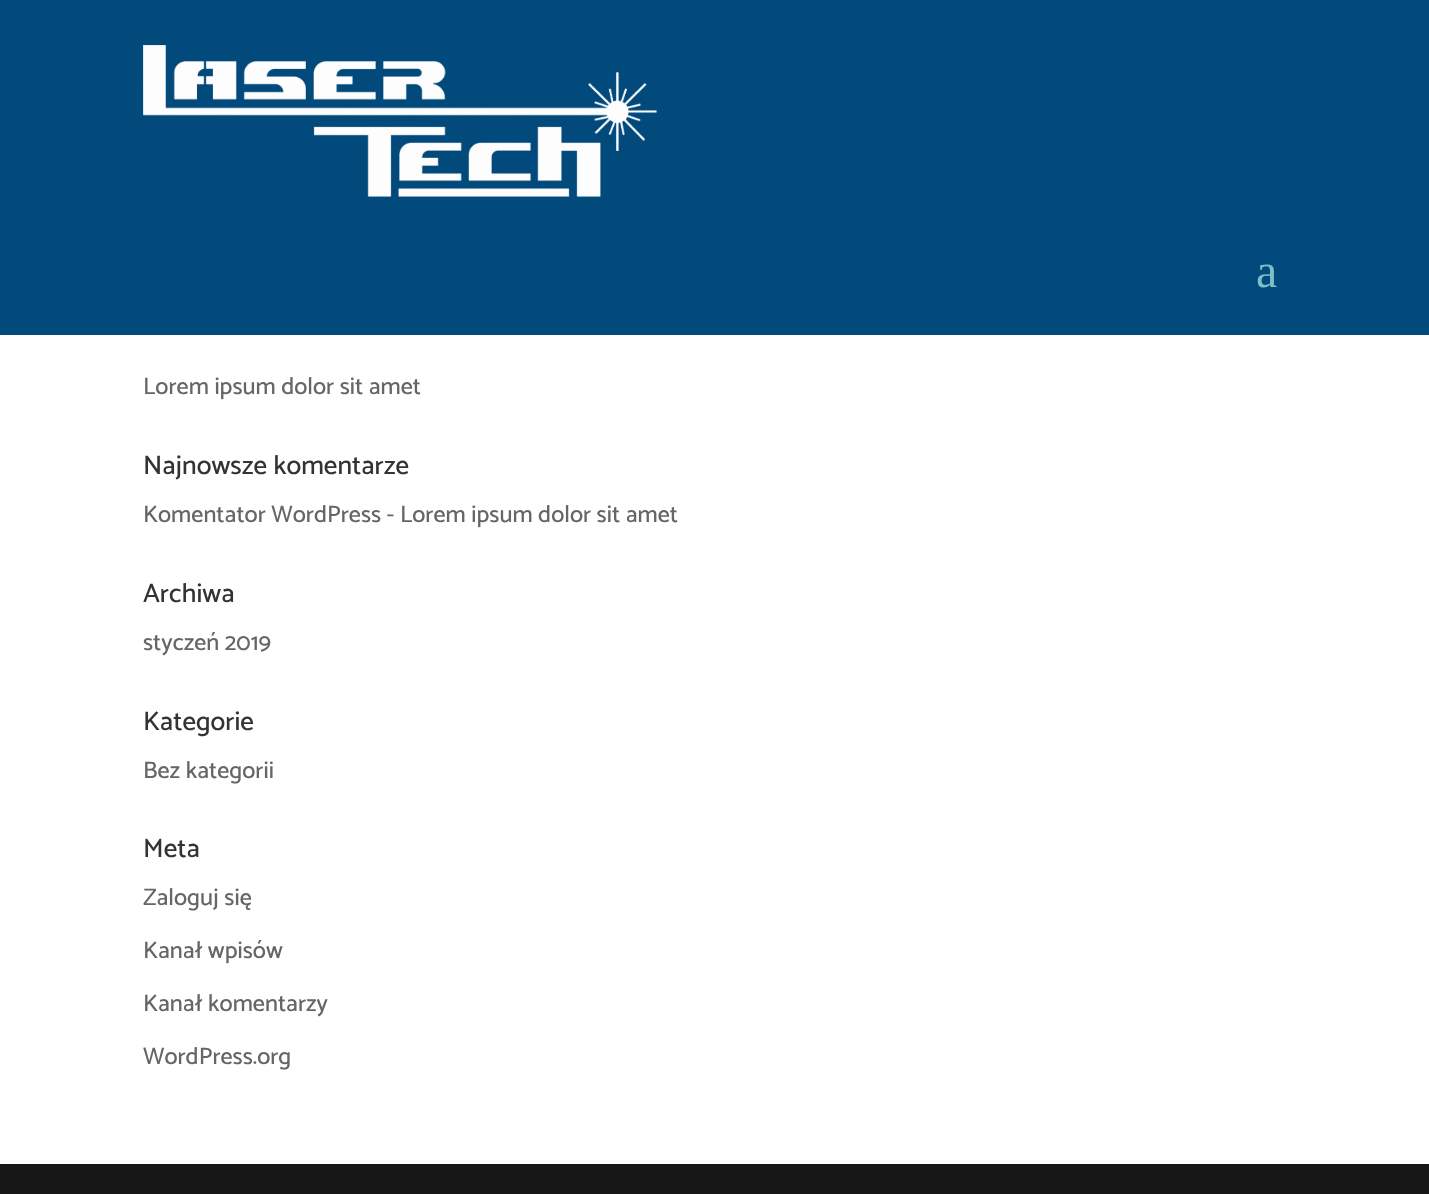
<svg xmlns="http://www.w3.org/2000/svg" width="1429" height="1194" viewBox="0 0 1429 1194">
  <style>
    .t1 { font: 48px Liberation Serif; fill: #7ebec5; }
    .t2 { font: 500 24px Catamaran; fill: #666; }
    .t3 { font: 500 27px Catamaran; fill: #333; }
  </style>
  <rect width="100%" height="100%" fill="#fff"/>
  <rect x="0" y="0" width="1429" height="335" fill="#02497c"/>
  <image x="143" y="45" width="514" height="152" href="images/1.png"/>
  <text x="1256" y="287" class="t1">a</text>
  <text x="143" y="394" class="t2">Lorem ipsum dolor sit amet</text>
  <text x="143" y="474" class="t3">Najnowsze komentarze</text>
  <text x="143" y="522" class="t2">Komentator WordPress - Lorem ipsum dolor sit amet</text>
  <text x="143" y="602" class="t3">Archiwa</text>
  <text x="143" y="650" class="t2">styczeń 2019</text>
  <text x="143" y="730" class="t3">Kategorie</text>
  <text x="143" y="778" class="t2">Bez kategorii</text>
  <text x="143" y="857" class="t3">Meta</text>
  <text x="143" y="905" class="t2">Zaloguj się</text>
  <text x="143" y="958" class="t2">Kanał wpisów</text>
  <text x="143" y="1011" class="t2">Kanał komentarzy</text>
  <text x="143" y="1064" class="t2">WordPress.org</text>
  <rect x="0" y="1164" width="1429" height="30" fill="#171717"/>
</svg>
